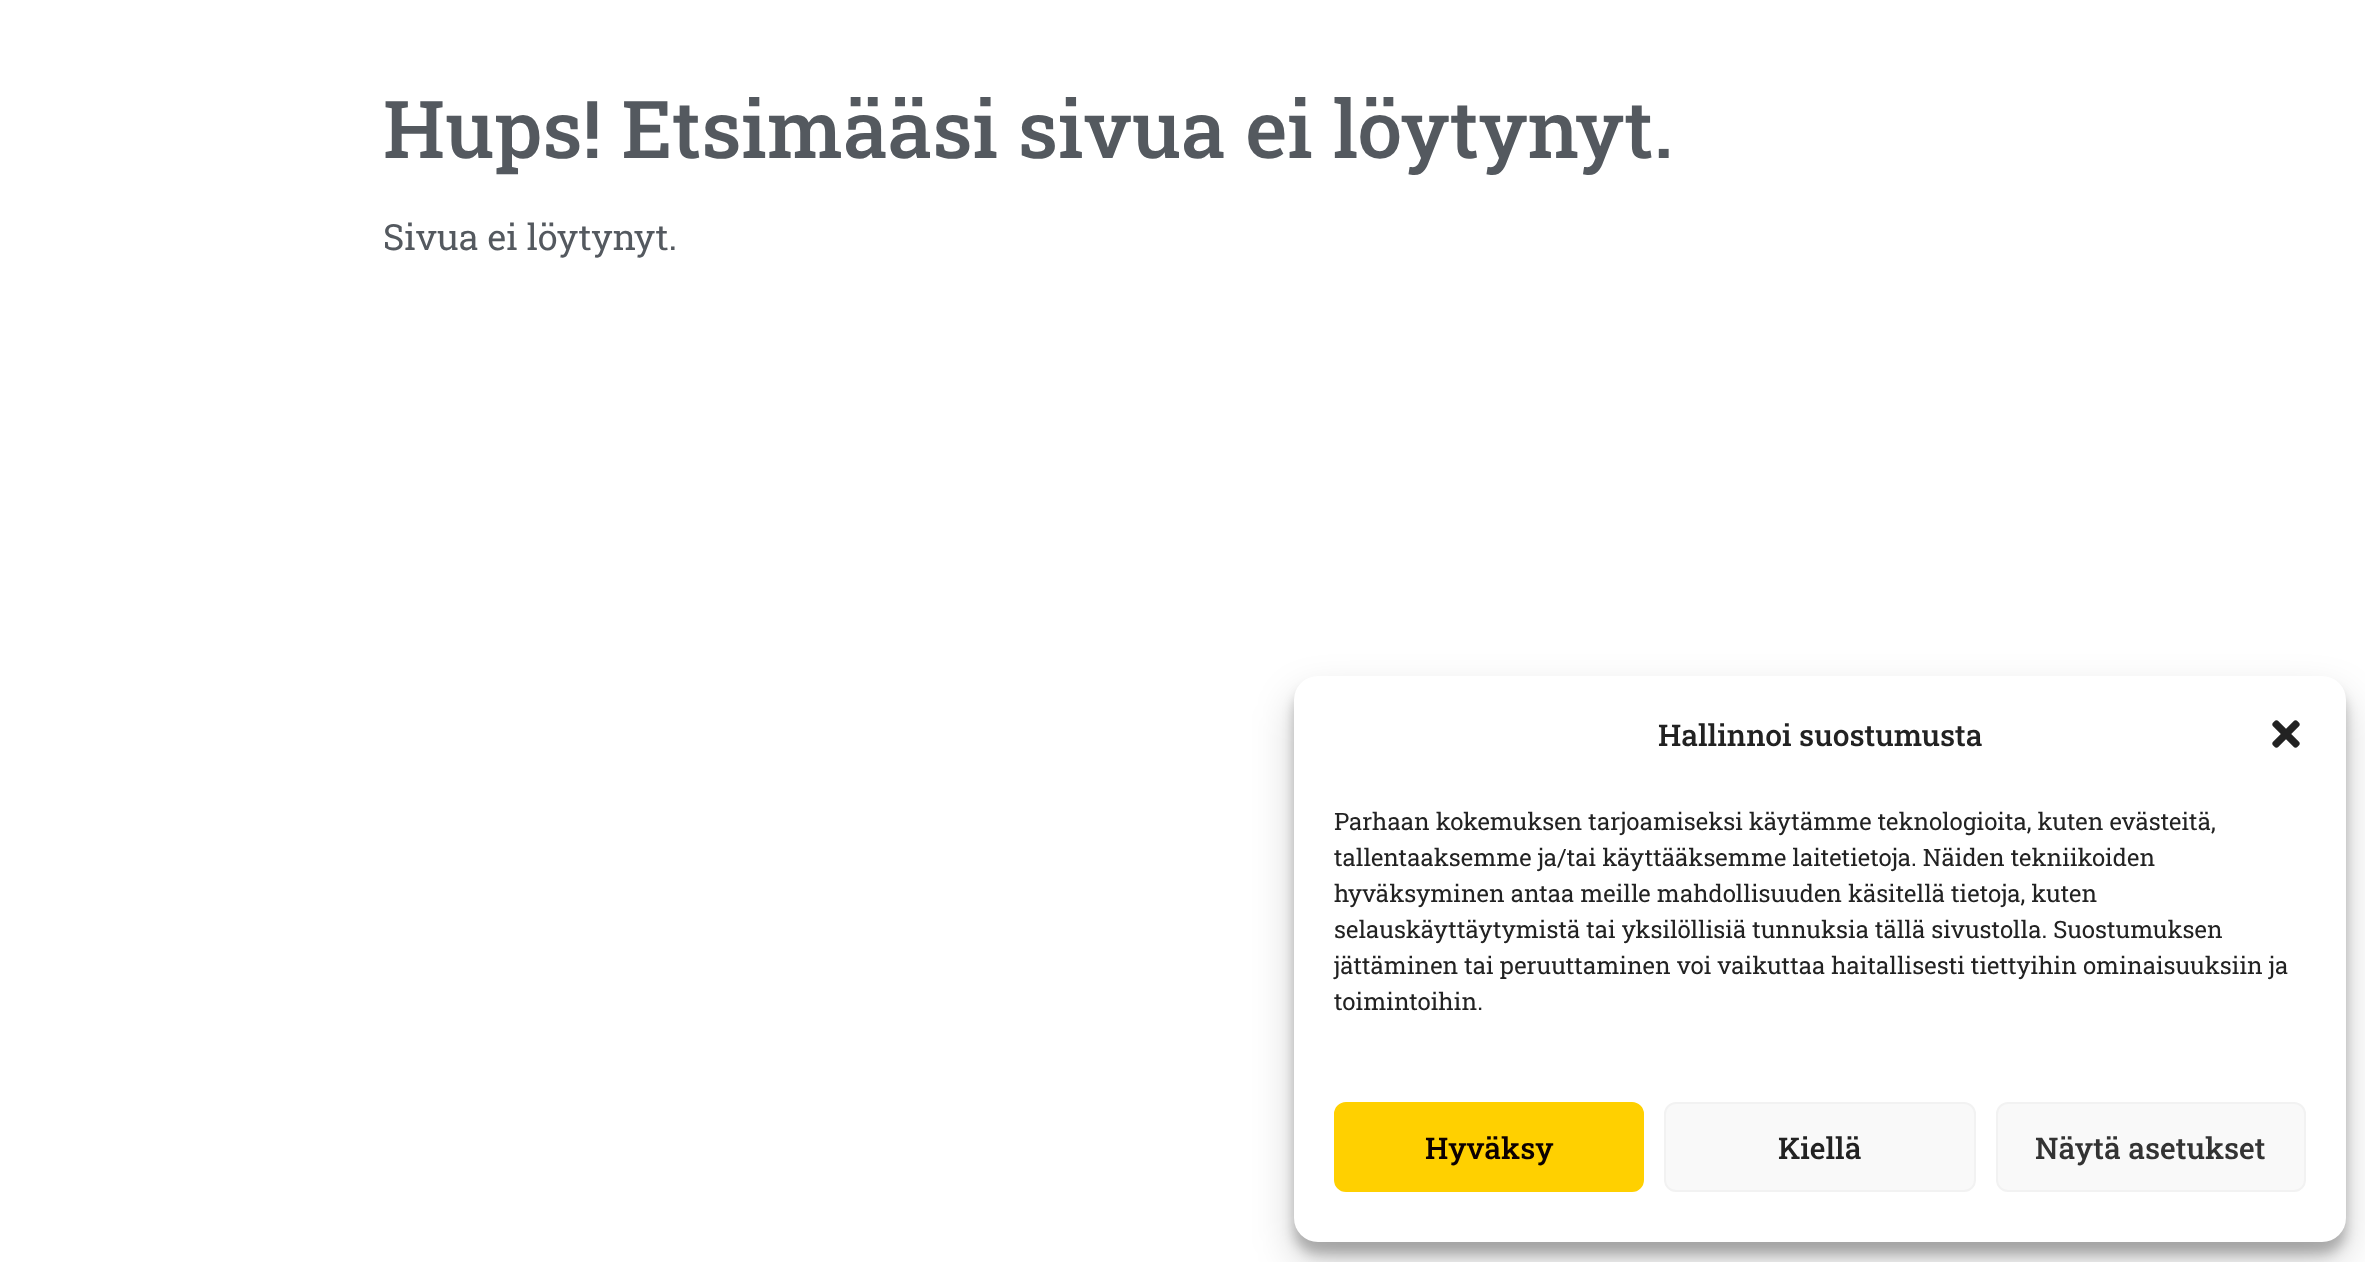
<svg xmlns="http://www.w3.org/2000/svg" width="2365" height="1262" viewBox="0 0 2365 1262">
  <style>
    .t1 { font: 500 80px Roboto Slab; fill: #54595f; }
    .t2 { font: 36px Roboto Slab; fill: #54595f; }
    .t3 { font: 500 30px Roboto Slab; fill: #222; }
    .t4 { font: 24px Roboto Slab; fill: #222; }
    .t5 { font: 500 30px Roboto Slab; fill: #0c0000; }
    .t6 { font: 500 30px Roboto Slab; fill: #333; }
  </style>
  <rect width="100%" height="100%" fill="#fff"/>
  <text x="383" y="158" class="t1">Hups! Etsimääsi sivua ei löytynyt.</text>
  <text x="383" y="250" class="t2">Sivua ei löytynyt.</text>
  <rect x="1294" y="688" width="1052" height="566" rx="24" fill="#0000003b" filter="blur(6px)"/>
  <rect x="1294" y="696" width="1052" height="566" rx="24" fill="#00000030" filter="blur(20px)"/>
  <rect x="1294" y="676" width="1052" height="566" rx="24" fill="#fff"/>
  <text x="1658" y="746" class="t3">Hallinnoi suostumusta</text>
  <image x="2272" y="720" width="28" height="28" href="images/1.png"/>
  <text x="1334" y="830" class="t4">Parhaan kokemuksen tarjoamiseksi käytämme teknologioita, kuten evästeitä,</text>
  <text x="1334" y="866" class="t4">tallentaaksemme ja/tai käyttääksemme laitetietoja. Näiden tekniikoiden</text>
  <text x="1334" y="902" class="t4">hyväksyminen antaa meille mahdollisuuden käsitellä tietoja, kuten</text>
  <text x="1334" y="938" class="t4">selauskäyttäytymistä tai yksilöllisiä tunnuksia tällä sivustolla. Suostumuksen</text>
  <text x="1334" y="974" class="t4">jättäminen tai peruuttaminen voi vaikuttaa haitallisesti tiettyihin ominaisuuksiin ja</text>
  <text x="1334" y="1010" class="t4">toimintoihin.</text>
  <rect x="1335" y="1103" width="308" height="88" rx="11" fill="#ffd000" stroke="#ffd000" stroke-width="2"/>
  <text x="1425" y="1159" class="t5">Hyväksy</text>
  <rect x="1665" y="1103" width="310" height="88" rx="11" fill="#f9f9f9" stroke="#f2f2f2" stroke-width="2"/>
  <text x="1778" y="1159" class="t3">Kiellä</text>
  <rect x="1997" y="1103" width="308" height="88" rx="11" fill="#f9f9f9" stroke="#f2f2f2" stroke-width="2"/>
  <text x="2035" y="1159" class="t6">Näytä asetukset</text>
</svg>
